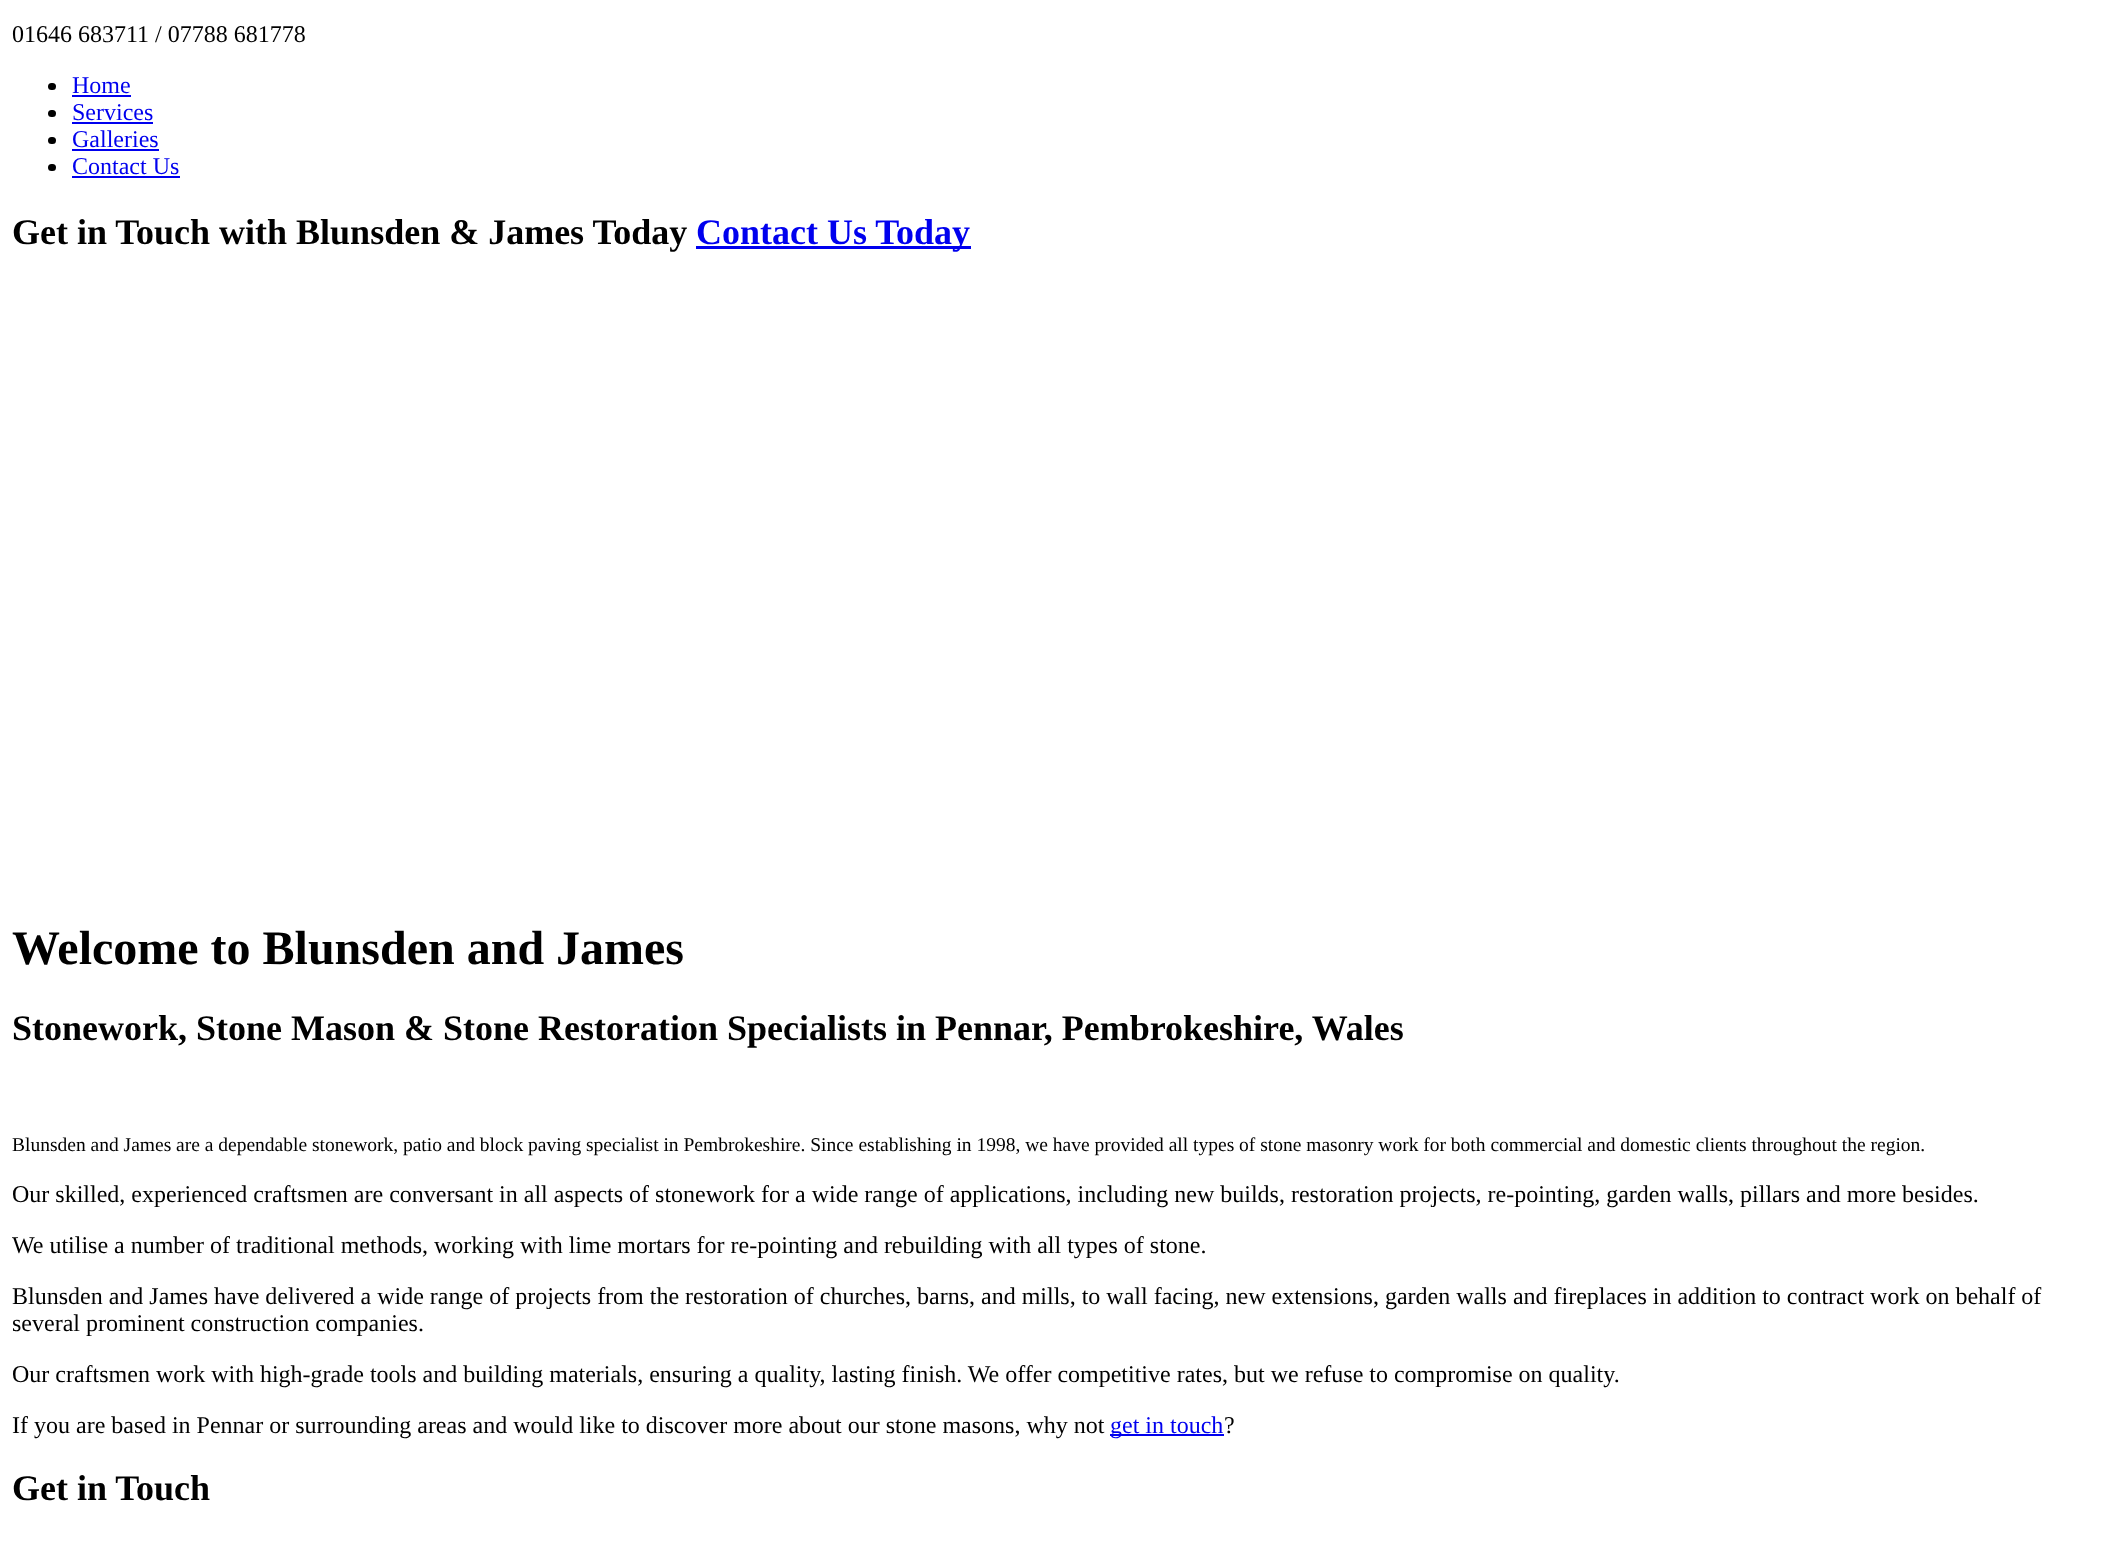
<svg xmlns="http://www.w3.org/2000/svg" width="2103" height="1541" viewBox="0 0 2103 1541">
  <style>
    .t1 { font: 24px Liberation Serif; fill: #000; }
    .t2 { font: 24px Liberation Serif; fill: #00e; }
    .t3 { font: bold 36px Liberation Serif; fill: #000; }
    .t4 { font: bold 36px Liberation Serif; fill: #00e; }
    .t5 { font: bold 48px Liberation Serif; fill: #000; }
    .t6 { font: 19.5px Liberation Serif; fill: #000; }
  </style>
  <rect width="100%" height="100%" fill="#fff"/>
  <text x="12" y="42" class="t1">01646 683711 / 07788 681778</text>
  <rect x="48" y="83" width="8" height="7" rx="3.5" fill="#000"/>
  <text x="72" y="93" class="t2">Home</text>
  <rect x="72" y="95" width="59" height="2" fill="#00e"/>
  <rect x="48" y="110" width="8" height="7" rx="3.5" fill="#000"/>
  <text x="72" y="120" class="t2">Services</text>
  <rect x="72" y="122" width="81" height="2" fill="#00e"/>
  <rect x="48" y="137" width="8" height="7" rx="3.5" fill="#000"/>
  <text x="72" y="147" class="t2">Galleries</text>
  <rect x="72" y="149" width="87" height="2" fill="#00e"/>
  <rect x="48" y="164" width="8" height="7" rx="3.5" fill="#000"/>
  <text x="72" y="174" class="t2">Contact Us</text>
  <rect x="72" y="176" width="108" height="2" fill="#00e"/>
  <text x="12" y="244" class="t3">Get in Touch with Blunsden &amp; James Today</text>
  <rect x="696" y="246" width="275" height="3" fill="#00e"/>
  <text x="696" y="244" class="t4">Contact Us Today</text>
  <text x="12" y="964" class="t5">Welcome to Blunsden and James</text>
  <text x="12" y="1040" class="t3">Stonework, Stone Mason &amp; Stone Restoration Specialists in Pennar, Pembrokeshire, Wales</text>
  <text x="12" y="1151" class="t6">Blunsden and James are a dependable stonework, patio and block paving specialist in Pembrokeshire. Since establishing in 1998, we have provided all types of stone masonry work for both commercial and domestic clients throughout the region.</text>
  <text x="12" y="1202" class="t1">Our skilled, experienced craftsmen are conversant in all aspects of stonework for a wide range of applications, including new builds, restoration projects, re-pointing, garden walls, pillars and more besides.</text>
  <text x="12" y="1253" class="t1">We utilise a number of traditional methods, working with lime mortars for re-pointing and rebuilding with all types of stone.</text>
  <text x="12" y="1304" class="t1">Blunsden and James have delivered a wide range of projects from the restoration of churches, barns, and mills, to wall facing, new extensions, garden walls and fireplaces in addition to contract work on behalf of</text>
  <text x="12" y="1331" class="t1">several prominent construction companies.</text>
  <text x="12" y="1382" class="t1">Our craftsmen work with high-grade tools and building materials, ensuring a quality, lasting finish. We offer competitive rates, but we refuse to compromise on quality.</text>
  <text x="12" y="1433" class="t1">If you are based in Pennar or surrounding areas and would like to discover more about our stone masons, why not</text>
  <rect x="1110" y="1434" width="114" height="2" fill="#00e"/>
  <text x="1110" y="1433" class="t2">get in touch</text>
  <text x="1224" y="1433" class="t1">?</text>
  <text x="12" y="1500" class="t3">Get in Touch</text>
</svg>
